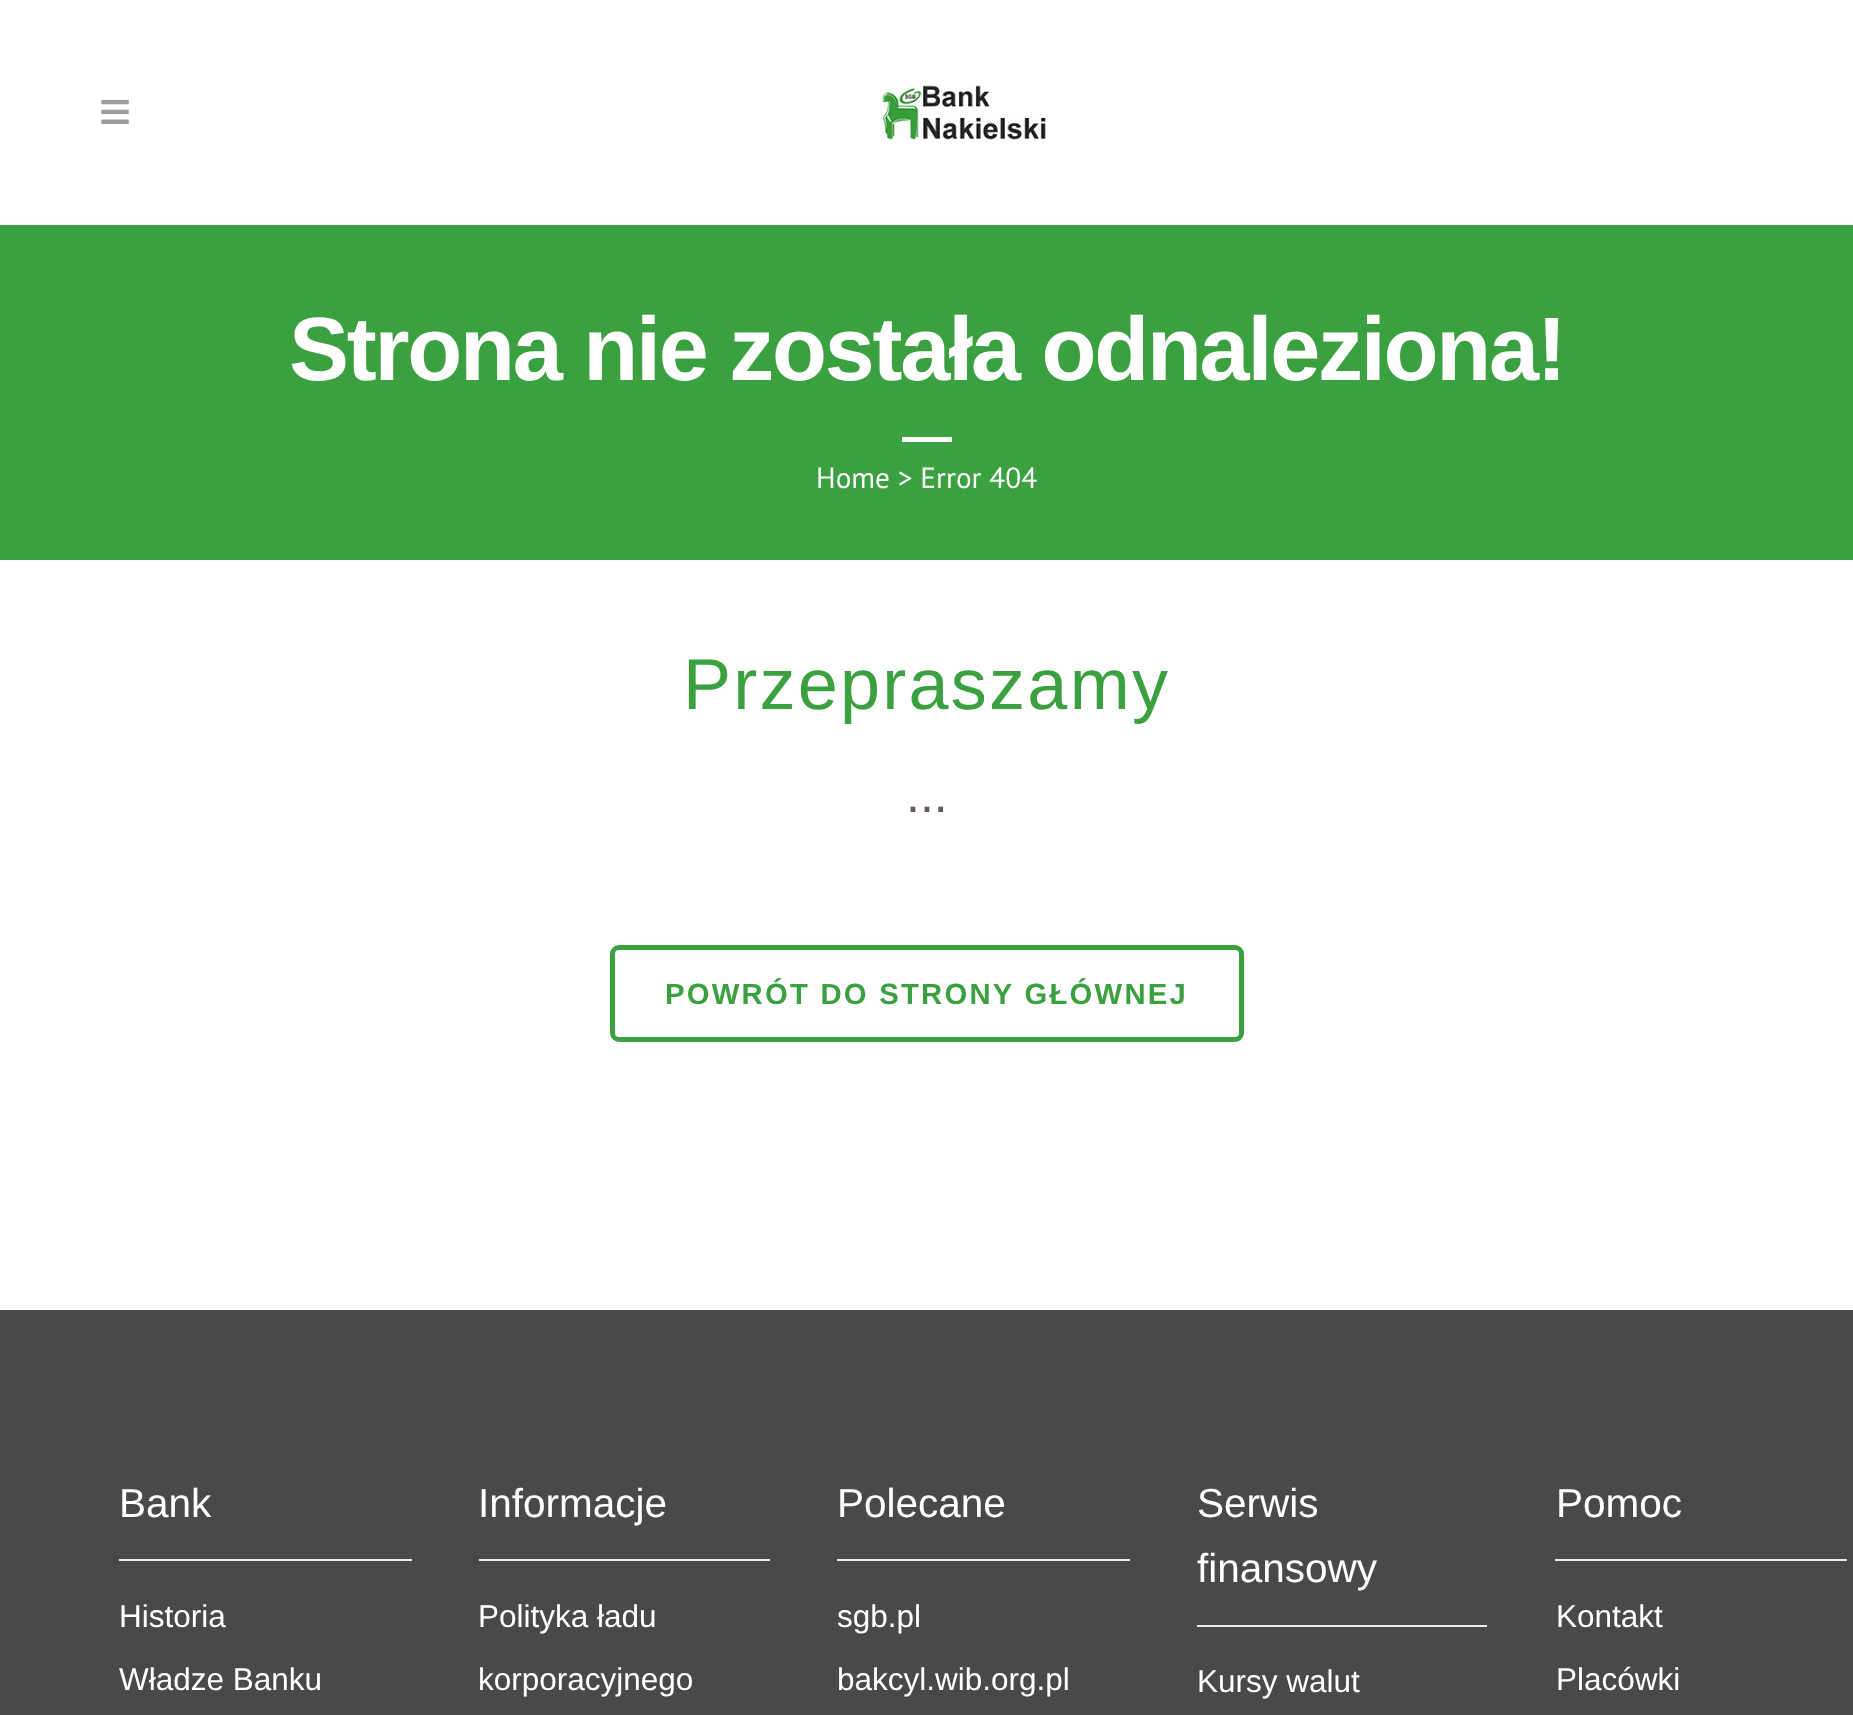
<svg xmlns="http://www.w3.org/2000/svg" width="1853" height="1715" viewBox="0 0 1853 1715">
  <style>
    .t1 { font: bold 90px Liberation Sans; letter-spacing: -2.25px; fill: #fff; }
    .t2 { font: 29.25px PT Sans; fill: #fff; }
    .t3 { font: 72px Liberation Sans; letter-spacing: 2.25px; fill: #3ba03f; }
    .t4 { font: 50px Liberation Sans; fill: #695a5a; }
    .t5 { font: bold 29.25px Liberation Sans; letter-spacing: 2.25px; fill: #3ba03f; }
    .t6 { font: 40.5px Liberation Sans; fill: #fff; }
    .t7 { font: 31.5px Liberation Sans; fill: #fff; }
  </style>
  <rect width="100%" height="100%" fill="#fff"/>
  <image x="101" y="99" width="28" height="25" href="images/1.png"/>
  <image x="881" y="85" width="165" height="55" href="images/2.png"/>
  <rect x="0" y="225" width="1853" height="335" fill="#3ba03f"/>
  <text x="289" y="380" class="t1">Strona nie została odnaleziona!</text>
  <rect x="902" y="437" width="50" height="5" fill="#fff"/>
  <text x="816" y="488" class="t2">Home &gt; Error 404</text>
  <text x="683" y="709" class="t3">Przepraszamy</text>
  <text x="906" y="812" class="t4">...</text>
  <rect x="612.5" y="947.5" width="629" height="92" rx="6.5" fill="none" stroke="#3ba03f" stroke-width="5"/>
  <text x="665" y="1004" class="t5">POWRÓT DO STRONY GŁÓWNEJ</text>
  <rect x="0" y="1310" width="1853" height="405" fill="#494949"/>
  <text x="119" y="1517" class="t6">Bank</text>
  <rect x="119" y="1559" width="293" height="2" fill="#eaeaea"/>
  <text x="119" y="1627" class="t7">Historia</text>
  <text x="119" y="1690" class="t7">Władze Banku</text>
  <text x="478" y="1517" class="t6">Informacje</text>
  <rect x="479" y="1559" width="291" height="2" fill="#eaeaea"/>
  <text x="478" y="1627" class="t7">Polityka ładu</text>
  <text x="478" y="1690" class="t7">korporacyjnego</text>
  <text x="837" y="1517" class="t6">Polecane</text>
  <rect x="837" y="1559" width="293" height="2" fill="#eaeaea"/>
  <text x="837" y="1627" class="t7">sgb.pl</text>
  <text x="837" y="1690" class="t7">bakcyl.wib.org.pl</text>
  <text x="1197" y="1517" class="t6">Serwis</text>
  <text x="1197" y="1582" class="t6">finansowy</text>
  <rect x="1197" y="1625" width="290" height="2" fill="#eaeaea"/>
  <text x="1197" y="1692" class="t7">Kursy walut</text>
  <text x="1556" y="1517" class="t6">Pomoc</text>
  <rect x="1555" y="1559" width="292" height="2" fill="#eaeaea"/>
  <text x="1556" y="1627" class="t7">Kontakt</text>
  <text x="1556" y="1690" class="t7">Placówki</text>
</svg>
